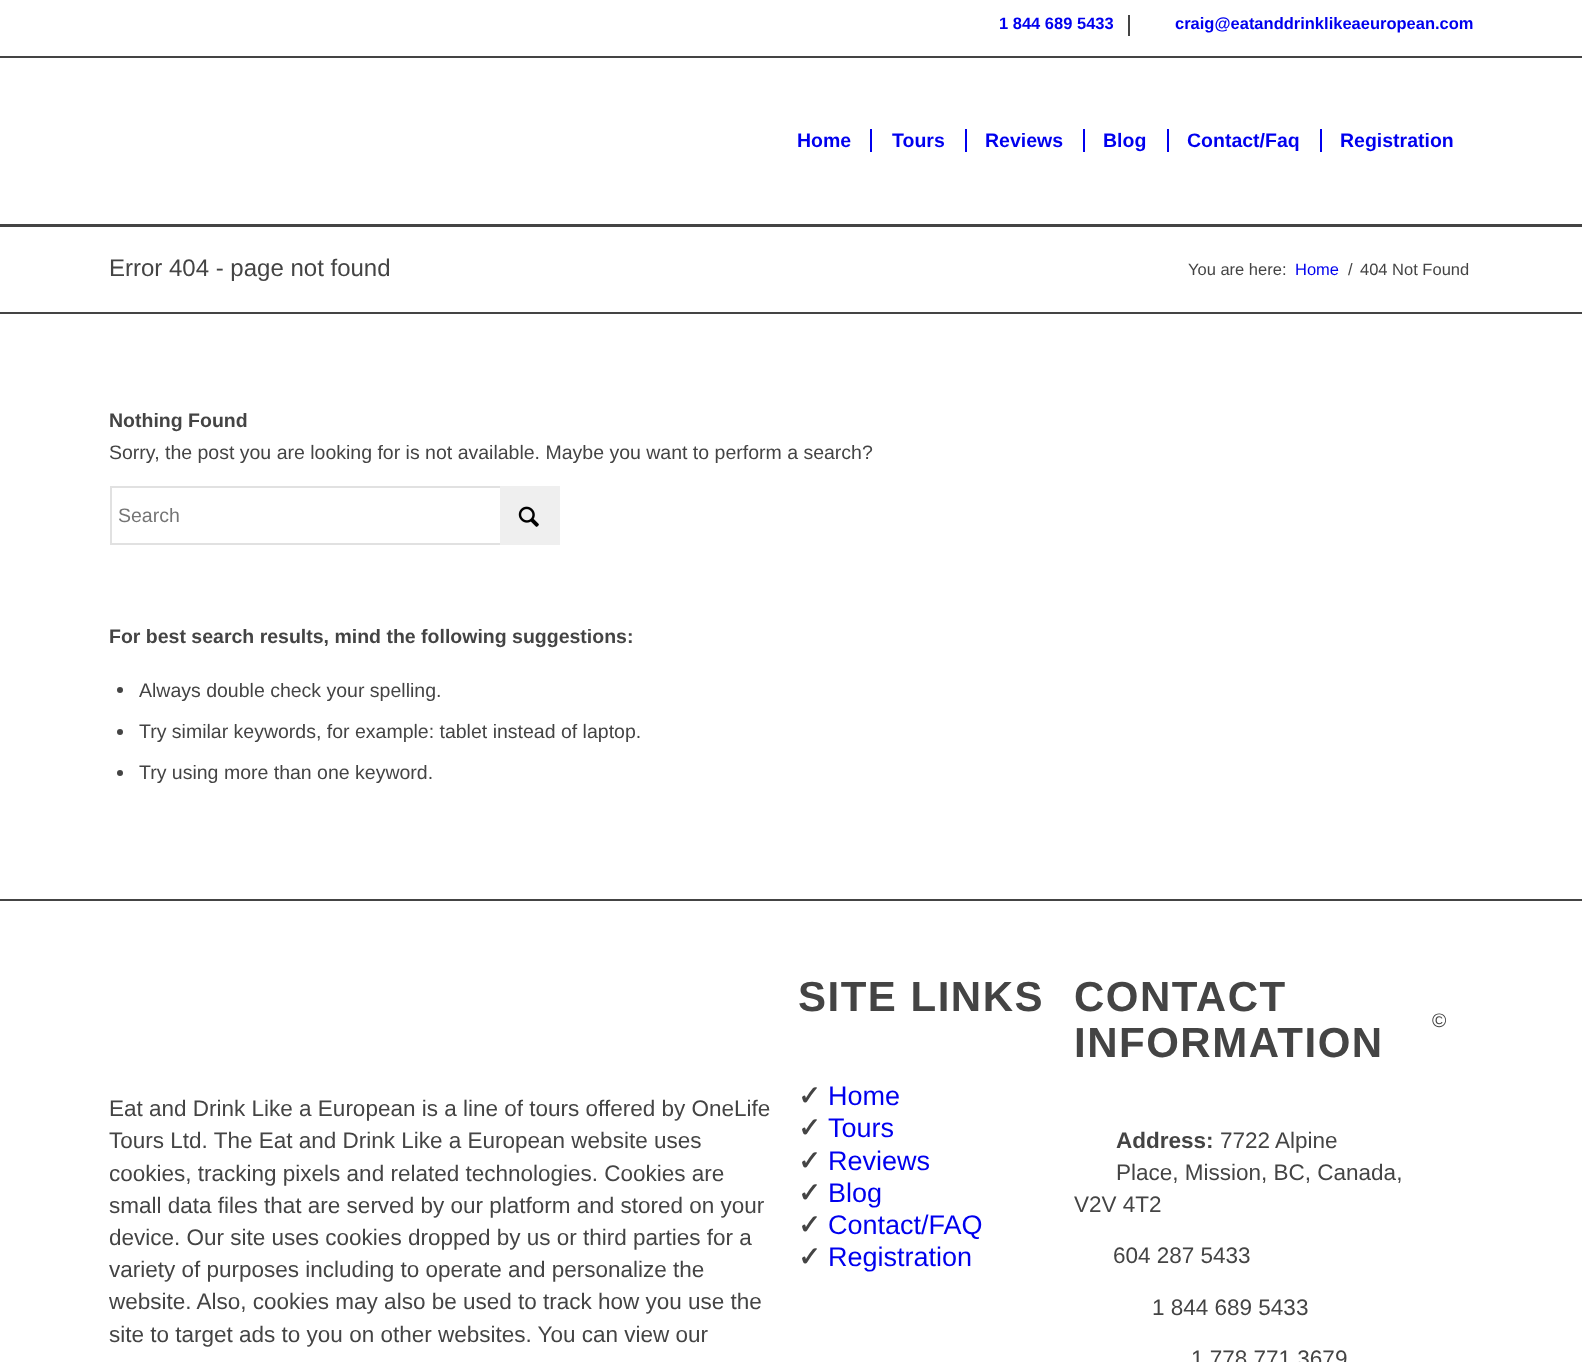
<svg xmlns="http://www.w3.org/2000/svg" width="1582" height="1362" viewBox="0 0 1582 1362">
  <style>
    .t1 { font: bold 16.5px Liberation Sans; fill: #00e; }
    .t2 { font: bold 19.5px Liberation Sans; fill: #00e; }
    .t3 { font: 24px Liberation Sans; fill: #444; }
    .t4 { font: 16.5px Liberation Sans; fill: #444; }
    .t5 { font: 16.5px Liberation Sans; fill: #00e; }
    .t6 { font: bold 19.5px Liberation Sans; fill: #444; }
    .t7 { font: 19.5px Liberation Sans; fill: #444; }
    .t8 { font: 19.5px Liberation Sans; fill: #757575; }
    .t9 { font: bold 42px Liberation Sans; letter-spacing: 1.5px; fill: #444; }
    .t10 { font: bold 27px DejaVu Sans; fill: #444; }
    .t11 { font: 27px Liberation Sans; fill: #00e; }
    .t12 { font: bold 22.5px Liberation Sans; fill: #444; }
    .t13 { font: 22.5px Liberation Sans; fill: #444; }
  </style>
  <rect width="100%" height="100%" fill="#fff"/>
  <rect x="1128" y="15" width="2" height="21" fill="#444"/>
  <text x="999" y="29" class="t1">1 844 689 5433</text>
  <text x="1175" y="29" class="t1">craig@eatanddrinklikeaeuropean.com</text>
  <rect x="0" y="56" width="1582" height="2" fill="#444"/>
  <text x="797" y="147" class="t2">Home</text>
  <text x="892" y="147" class="t2">Tours</text>
  <rect x="870" y="129" width="2" height="23" fill="#00e"/>
  <text x="985" y="147" class="t2">Reviews</text>
  <rect x="965" y="129" width="2" height="23" fill="#00e"/>
  <text x="1103" y="147" class="t2">Blog</text>
  <rect x="1083" y="129" width="2" height="23" fill="#00e"/>
  <text x="1187" y="147" class="t2">Contact/Faq</text>
  <rect x="1167" y="129" width="2" height="23" fill="#00e"/>
  <text x="1340" y="147" class="t2">Registration</text>
  <rect x="1320" y="129" width="2" height="23" fill="#00e"/>
  <rect x="0" y="224" width="1582" height="3" fill="#444"/>
  <text x="109" y="276" class="t3">Error 404 - page not found</text>
  <text x="1188" y="275" class="t4">You are here:</text>
  <text x="1295" y="275" class="t5">Home</text>
  <text x="1348" y="275" class="t4">/</text>
  <text x="1360" y="275" class="t4">404 Not Found</text>
  <rect x="0" y="312" width="1582" height="2" fill="#444"/>
  <text x="109" y="427" class="t6">Nothing Found</text>
  <text x="109" y="459" class="t7">Sorry, the post you are looking for is not available. Maybe you want to perform a search?</text>
  <rect x="111" y="487" width="448" height="57" fill="none" stroke="#e1e1e1" stroke-width="2"/>
  <rect x="500" y="486" width="60" height="59" fill="#efefef"/>
  <text x="118" y="522" class="t8">Search</text>
  <image x="518" y="506" width="21" height="21" href="images/1.png"/>
  <text x="109" y="643" class="t6">For best search results, mind the following suggestions:</text>
  <circle cx="120" cy="690" r="3" fill="#444"/>
  <text x="139" y="697" class="t7">Always double check your spelling.</text>
  <circle cx="120" cy="732" r="3" fill="#444"/>
  <text x="139" y="738" class="t7">Try similar keywords, for example: tablet instead of laptop.</text>
  <circle cx="120" cy="773" r="3" fill="#444"/>
  <text x="139" y="779" class="t7">Try using more than one keyword.</text>
  <rect x="0" y="899" width="1582" height="2" fill="#444"/>
  <text x="798" y="1011" class="t9">SITE LINKS</text>
  <text x="798" y="1105" class="t10">✓</text>
  <text x="828" y="1105" class="t11">Home</text>
  <text x="798" y="1137" class="t10">✓</text>
  <text x="828" y="1137" class="t11">Tours</text>
  <text x="798" y="1170" class="t10">✓</text>
  <text x="828" y="1170" class="t11">Reviews</text>
  <text x="798" y="1202" class="t10">✓</text>
  <text x="828" y="1202" class="t11">Blog</text>
  <text x="798" y="1234" class="t10">✓</text>
  <text x="828" y="1234" class="t11">Contact/FAQ</text>
  <text x="798" y="1266" class="t10">✓</text>
  <text x="828" y="1266" class="t11">Registration</text>
  <text x="1074" y="1011" class="t9">CONTACT</text>
  <text x="1074" y="1057" class="t9">INFORMATION</text>
  <text x="1116" y="1148" class="t12">Address:</text>
  <text x="1220" y="1148" class="t13">7722 Alpine</text>
  <text x="1116" y="1180" class="t13">Place, Mission, BC, Canada,</text>
  <text x="1074" y="1212" class="t13">V2V 4T2</text>
  <text x="1113" y="1263" class="t13">604 287 5433</text>
  <text x="1152" y="1315" class="t13">1 844 689 5433</text>
  <text x="1191" y="1366" class="t13">1 778 771 3679</text>
  <text x="1432" y="1027" class="t7">©</text>
  <text x="109" y="1116" class="t13">Eat and Drink Like a European is a line of tours offered by OneLife</text>
  <text x="109" y="1148" class="t13">Tours Ltd. The Eat and Drink Like a European website uses</text>
  <text x="109" y="1181" class="t13">cookies, tracking pixels and related technologies. Cookies are</text>
  <text x="109" y="1213" class="t13">small data files that are served by our platform and stored on your</text>
  <text x="109" y="1245" class="t13">device. Our site uses cookies dropped by us or third parties for a</text>
  <text x="109" y="1277" class="t13">variety of purposes including to operate and personalize the</text>
  <text x="109" y="1309" class="t13">website. Also, cookies may also be used to track how you use the</text>
  <text x="109" y="1342" class="t13">site to target ads to you on other websites. You can view our</text>
</svg>
